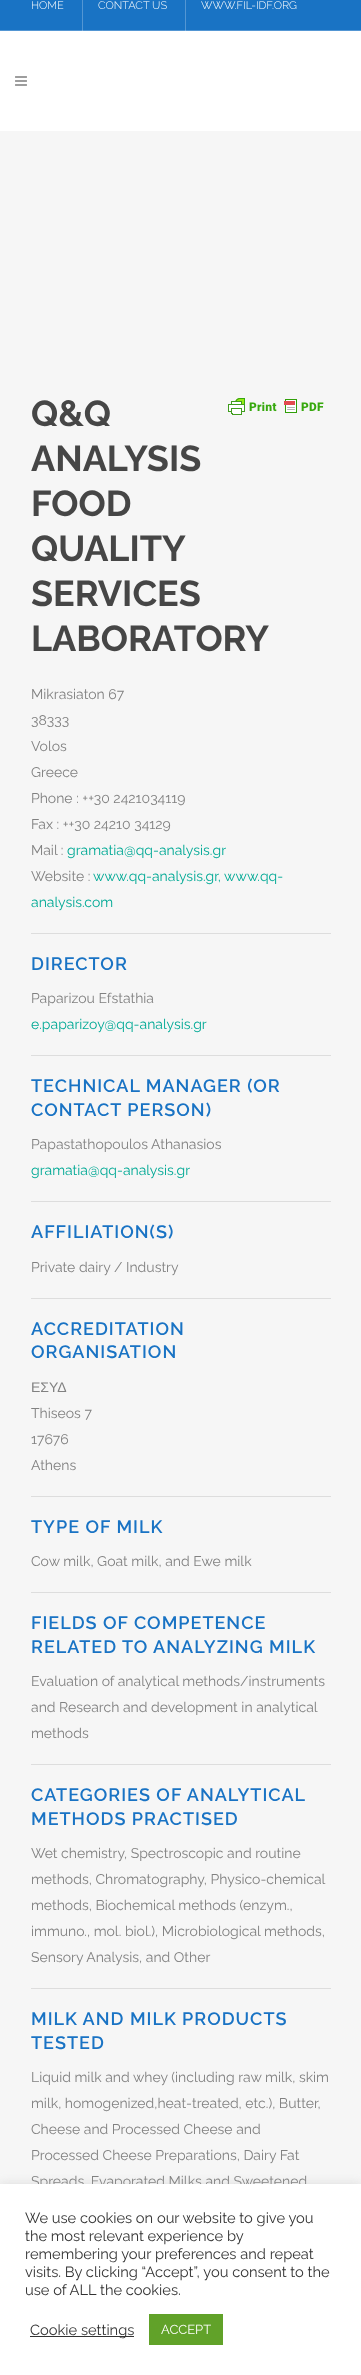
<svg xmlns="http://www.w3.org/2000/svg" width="361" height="2375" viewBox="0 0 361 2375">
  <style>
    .t1 { font: 300 11px Raleway; fill: #fff; }
    .t2 { font: bold 36px Raleway; fill: #464646; }
    .t3 { font: 14px Raleway; fill: #818181; }
    .t4 { font: 14px Raleway; fill: #00a995; }
    .t5 { font: 600 18px Raleway; letter-spacing: 1px; fill: #1973c4; }
    .t6 { font: 14px Liberation Sans; fill: #818181; }
    .t7 { font: 14.7px Raleway; fill: #333; }
    .t8 { font: 13px Raleway; fill: #fff; }
  </style>
  <rect width="100%" height="100%" fill="#f6f6f6"/>
  <rect x="0" y="0" width="361" height="30" fill="#1973c4"/>
  <rect x="185" y="0" width="1" height="31" fill="#5396d3"/>
  <rect x="82" y="0" width="1" height="31" fill="#5396d3"/>
  <rect x="0" y="30" width="361" height="1" fill="#5396d3"/>
  <rect x="185" y="30" width="1" height="1" fill="#7eb0de"/>
  <rect x="82" y="30" width="1" height="1" fill="#7eb0de"/>
  <text x="31" y="9" class="t1">HOME</text>
  <text x="98" y="9" class="t1">CONTACT US</text>
  <text x="201" y="9" class="t1">WWW.FIL-IDF.ORG</text>
  <rect x="0" y="31" width="361" height="100" fill="#fff"/>
  <image x="15" y="76" width="12" height="10" href="images/1.png"/>
  <text x="31" y="426" class="t2">Q&amp;Q</text>
  <text x="31" y="471" class="t2">ANALYSIS</text>
  <text x="31" y="516" class="t2">FOOD</text>
  <text x="31" y="561" class="t2">QUALITY</text>
  <text x="31" y="606" class="t2">SERVICES</text>
  <text x="31" y="651" class="t2">LABORATORY</text>
  <image x="228" y="398" width="96" height="17" href="images/2.png"/>
  <text x="31" y="699" class="t3">Mikrasiaton 67</text>
  <text x="31" y="725" class="t3">38333</text>
  <text x="31" y="751" class="t3">Volos</text>
  <text x="31" y="777" class="t3">Greece</text>
  <text x="31" y="803" class="t3">Phone : ++30 2421034119</text>
  <text x="31" y="829" class="t3">Fax : ++30 24210 34129</text>
  <text x="31" y="855" class="t3">Mail :</text>
  <text x="67" y="855" class="t4">gramatia@qq-analysis.gr</text>
  <text x="31" y="881" class="t3">Website :</text>
  <text x="93" y="881" class="t4">www.qq-analysis.gr, www.qq-</text>
  <text x="31" y="907" class="t4">analysis.com</text>
  <rect x="31" y="933" width="300" height="1" fill="#ddd"/>
  <text x="31" y="970" class="t5">DIRECTOR</text>
  <text x="31" y="1003" class="t3">Paparizou Efstathia</text>
  <text x="31" y="1029" class="t4">e.paparizoy@qq-analysis.gr</text>
  <rect x="31" y="1055" width="300" height="1" fill="#ddd"/>
  <text x="31" y="1092" class="t5">TECHNICAL MANAGER (OR</text>
  <text x="31" y="1116" class="t5">CONTACT PERSON)</text>
  <text x="31" y="1149" class="t3">Papastathopoulos Athanasios</text>
  <text x="31" y="1175" class="t4">gramatia@qq-analysis.gr</text>
  <rect x="31" y="1201" width="300" height="1" fill="#ddd"/>
  <text x="31" y="1238" class="t5">AFFILIATION(S)</text>
  <text x="31" y="1272" class="t3">Private dairy / Industry</text>
  <rect x="31" y="1298" width="300" height="1" fill="#ddd"/>
  <text x="31" y="1335" class="t5">ACCREDITATION</text>
  <text x="31" y="1358" class="t5">ORGANISATION</text>
  <text x="31" y="1392" class="t6">ΕΣΥΔ</text>
  <text x="31" y="1418" class="t3">Thiseos 7</text>
  <text x="31" y="1444" class="t3">17676</text>
  <text x="31" y="1470" class="t3">Athens</text>
  <rect x="31" y="1496" width="300" height="1" fill="#ddd"/>
  <text x="31" y="1533" class="t5">TYPE OF MILK</text>
  <text x="31" y="1566" class="t3">Cow milk, Goat milk, and Ewe milk</text>
  <rect x="31" y="1592" width="300" height="1" fill="#ddd"/>
  <text x="31" y="1629" class="t5">FIELDS OF COMPETENCE</text>
  <text x="31" y="1653" class="t5">RELATED TO ANALYZING MILK</text>
  <text x="31" y="1686" class="t3">Evaluation of analytical methods/instruments</text>
  <text x="31" y="1712" class="t3">and Research and development in analytical</text>
  <text x="31" y="1738" class="t3">methods</text>
  <rect x="31" y="1764" width="300" height="1" fill="#ddd"/>
  <text x="31" y="1801" class="t5">CATEGORIES OF ANALYTICAL</text>
  <text x="31" y="1825" class="t5">METHODS PRACTISED</text>
  <text x="31" y="1858" class="t3">Wet chemistry, Spectroscopic and routine</text>
  <text x="31" y="1884" class="t3">methods, Chromatography, Physico-chemical</text>
  <text x="31" y="1910" class="t3">methods, Biochemical methods (enzym.,</text>
  <text x="31" y="1936" class="t3">immuno., mol. biol.), Microbiological methods,</text>
  <text x="31" y="1962" class="t3">Sensory Analysis, and Other</text>
  <rect x="31" y="1988" width="300" height="1" fill="#ddd"/>
  <text x="31" y="2025" class="t5">MILK AND MILK PRODUCTS</text>
  <text x="31" y="2049" class="t5">TESTED</text>
  <text x="31" y="2082" class="t3">Liquid milk and whey (including raw milk, skim</text>
  <text x="31" y="2108" class="t3">milk, homogenized,heat-treated, etc.), Butter,</text>
  <text x="31" y="2134" class="t3">Cheese and Processed Cheese and</text>
  <text x="31" y="2160" class="t3">Processed Cheese Preparations, Dairy Fat</text>
  <text x="31" y="2186" class="t3">Spreads, Evaporated Milks and Sweetened</text>
  <rect x="0" y="2183" width="361" height="191" fill="#acabab4d" filter="blur(5px)"/>
  <rect x="0" y="2184" width="361" height="191" fill="#fff"/>
  <text x="25" y="2223" class="t7">We use cookies on our website to give you</text>
  <text x="25" y="2241" class="t7">the most relevant experience by</text>
  <text x="25" y="2259" class="t7">remembering your preferences and repeat</text>
  <text x="25" y="2277" class="t7">visits. By clicking “Accept”, you consent to the</text>
  <text x="25" y="2295" class="t7">use of ALL the cookies.</text>
  <rect x="30" y="2336" width="104" height="1" fill="#333"/>
  <text x="30" y="2335" class="t7">Cookie settings</text>
  <rect x="149" y="2314" width="74" height="31" fill="#61a229"/>
  <text x="161" y="2334" class="t8">ACCEPT</text>
</svg>
